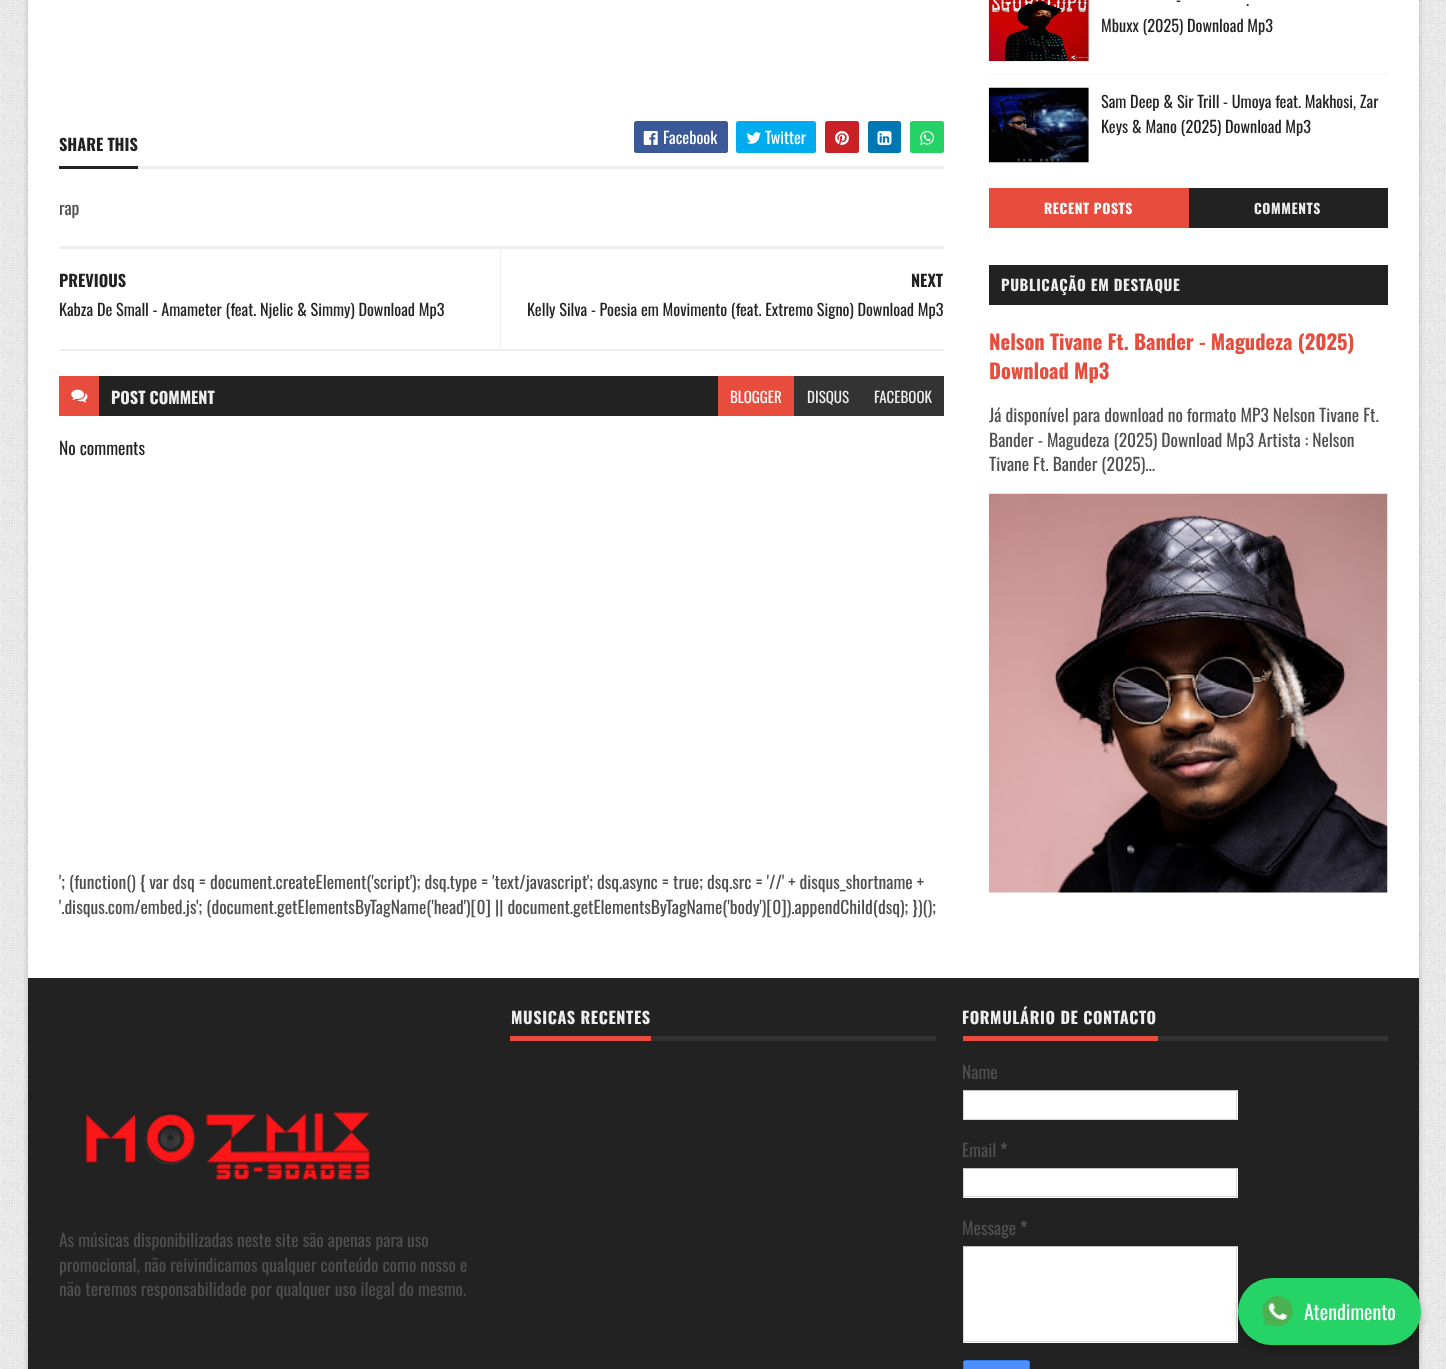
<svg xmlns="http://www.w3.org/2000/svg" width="1446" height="1369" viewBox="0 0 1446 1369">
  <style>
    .t1 { font: bold 16.25px Oswald; fill: #222; }
    .t2 { font: 16.25px Oswald; fill: #fff; }
    .t3 { font: 17.5px Oswald; fill: #4f4f4f; }
    .t4 { font: 16.25px Oswald; fill: #222; }
    .t5 { font: bold 16.25px Oswald; fill: #eee; }
    .t6 { font: 15px Oswald; fill: #fff; }
    .t7 { font: 15px Oswald; fill: #eee; }
    .t8 { font: 17.5px Oswald; fill: #222; }
    .t9 { font: 20px Oswald; fill: #fff; }
    .t10 { font: bold 13.75px Oswald; letter-spacing: 0.6px; fill: #fff; }
    .t11 { font: bold 13.75px Oswald; letter-spacing: 0.6px; fill: #eee; }
    .t12 { font: bold 15px Oswald; letter-spacing: 0.6px; fill: #eee; }
    .t13 { font: bold 20.5px Oswald; fill: #e74c3c; }
    .t14 { font: bold 16.25px Oswald; letter-spacing: 0.6px; fill: #eee; }
    .t15 { font: bold 17.5px Oswald; fill: #4f4f4f; }
  </style>
  <defs>
    <linearGradient id="g1" gradientUnits="userSpaceOnUse" x1="996" y1="1361" x2="996" y2="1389"><stop offset="0" stop-color="#4d90fe"/><stop offset="1" stop-color="#4787ed"/></linearGradient>
  </defs>
  <rect width="100%" height="100%" fill="#fff"/>
  <image x="0" y="0" width="1446" height="1369" href="images/1.png"/>
  <rect x="28" y="-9" width="1391" height="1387" fill="#00000033" filter="blur(3px)"/>
  <rect x="28" y="0" width="1391" height="978" fill="#fff"/>
  <rect x="138" y="166" width="806" height="3" fill="#eee"/>
  <rect x="59" y="166" width="79" height="3" fill="#222"/>
  <text x="59" y="151" class="t1">SHARE THIS</text>
  <rect x="634" y="121" width="94" height="32" rx="2.5" fill="#3b5998"/>
  <image x="643" y="131" width="15" height="14" href="images/2.png"/>
  <text x="663" y="144" class="t2">Facebook</text>
  <rect x="736" y="121" width="80" height="32" rx="2.5" fill="#00acee"/>
  <image x="746" y="132" width="15" height="12" href="images/3.png"/>
  <text x="765" y="144" class="t2">Twitter</text>
  <rect x="825" y="121" width="34" height="32" rx="2.5" fill="#ca2127"/>
  <image x="835" y="131" width="14" height="14" href="images/4.png"/>
  <rect x="868" y="121" width="33" height="32" rx="2.5" fill="#0077b5"/>
  <image x="877" y="131" width="15" height="14" href="images/5.png"/>
  <rect x="910" y="121" width="34" height="32" rx="2.5" fill="#25d266"/>
  <image x="920" y="130" width="14" height="15" href="images/6.png"/>
  <text x="59" y="215" class="t3">rap</text>
  <rect x="59" y="246" width="885" height="3" fill="#eee"/>
  <rect x="59" y="349" width="885" height="2" fill="#eee"/>
  <rect x="500" y="249" width="1" height="100" fill="#eee"/>
  <text x="59" y="287" class="t1">PREVIOUS</text>
  <text x="59" y="316" class="t4">Kabza De Small - Amameter (feat. Njelic &amp; Simmy) Download Mp3</text>
  <text x="911" y="287" class="t1">NEXT</text>
  <text x="527" y="316" class="t4">Kelly Silva - Poesia em Movimento (feat. Extremo Signo) Download Mp3</text>
  <rect x="99" y="376" width="619" height="40" fill="#222"/>
  <rect x="59" y="376" width="40" height="40" fill="#e74c3c"/>
  <image x="71" y="389" width="17" height="14" href="images/7.png"/>
  <text x="111" y="404" class="t5">POST COMMENT</text>
  <rect x="718" y="376" width="76" height="40" fill="#e74c3c"/>
  <text x="730" y="403" class="t6">BLOGGER</text>
  <rect x="794" y="376" width="150" height="40" fill="#333"/>
  <text x="807" y="403" class="t7">DISQUS</text>
  <text x="874" y="403" class="t7">FACEBOOK</text>
  <text x="59" y="455" class="t8">No comments</text>
  <text x="59" y="889" class="t3">'; (function() { var dsq = document.createElement('script'); dsq.type = 'text/javascript'; dsq.async = true; dsq.src = '//' + disqus_shortname +</text>
  <text x="59" y="914" class="t3">'.disqus.com/embed.js'; (document.getElementsByTagName('head')[0] || document.getElementsByTagName('body')[0]).appendChild(dsq); })();</text>
  <image x="988" y="0" width="101" height="62" href="images/8.png"/>
  <rect x="989" y="0" width="100" height="61" fill="#2823280d"/>
  <text x="1176" y="6" class="t4">-</text>
  <text x="1246" y="6" class="t4">.</text>
  <text x="1101" y="32" class="t4">Mbuxx (2025) Download Mp3</text>
  <rect x="989" y="74" width="399" height="1" fill="#f5f5f5"/>
  <image x="988" y="87" width="101" height="76" href="images/9.png"/>
  <rect x="989" y="88" width="100" height="75" fill="#2823280d"/>
  <text x="1101" y="108" class="t4">Sam Deep &amp; Sir Trill - Umoya feat. Makhosi, Zar</text>
  <text x="1101" y="133" class="t4">Keys &amp; Mano (2025) Download Mp3</text>
  <rect x="28" y="978" width="1391" height="391" fill="#222"/>
  <rect x="964" y="1247" width="274" height="96" fill="#fff"/>
  <rect x="963" y="1246" width="275" height="1" fill="#c0c0c0"/>
  <rect x="1236" y="1246" width="1" height="97" fill="#d9d9d9"/>
  <rect x="963" y="1341" width="275" height="1" fill="#d9d9d9"/>
  <rect x="1238" y="1283" width="183" height="67" rx="33.5" fill="#00000033" filter="blur(4px)"/>
  <rect x="1238" y="1278" width="183" height="67" rx="33.5" fill="#25d366"/>
  <image x="1262" y="1296" width="31" height="31" href="images/10.png"/>
  <text x="1304" y="1320" class="t9">Atendimento</text>
  <rect x="989" y="188" width="200" height="40" fill="#e74c3c"/>
  <text x="1044" y="214" class="t10">RECENT POSTS</text>
  <rect x="1189" y="188" width="199" height="40" fill="#222"/>
  <text x="1254" y="214" class="t11">COMMENTS</text>
  <rect x="989" y="265" width="399" height="40" fill="#222"/>
  <text x="1001" y="291" class="t12">PUBLICAÇÃO EM DESTAQUE</text>
  <text x="989" y="350" class="t13">Nelson Tivane Ft. Bander - Magudeza (2025)</text>
  <text x="989" y="379" class="t13">Download Mp3</text>
  <text x="989" y="422" class="t3">Já disponível para download no formato MP3 Nelson Tivane Ft.</text>
  <text x="989" y="447" class="t3">Bander - Magudeza (2025) Download Mp3 Artista : Nelson</text>
  <text x="989" y="471" class="t3">Tivane Ft. Bander (2025)...</text>
  <image x="988" y="493" width="400" height="400" href="images/11.png"/>
  <rect x="651" y="1036" width="285" height="5" fill="#333"/>
  <rect x="510" y="1036" width="141" height="5" fill="#e74c3c"/>
  <text x="511" y="1024" class="t14">MUSICAS RECENTES</text>
  <rect x="1158" y="1036" width="230" height="5" fill="#333"/>
  <rect x="963" y="1036" width="195" height="5" fill="#e74c3c"/>
  <text x="962" y="1024" class="t14">FORMULÁRIO DE CONTACTO</text>
  <text x="962" y="1079" class="t3">Name</text>
  <rect x="964" y="1091" width="274" height="28" fill="#fff"/>
  <rect x="963" y="1090" width="275" height="1" fill="#c0c0c0"/>
  <rect x="1236" y="1090" width="1" height="30" fill="#d9d9d9"/>
  <rect x="963" y="1119" width="275" height="1" fill="#d9d9d9"/>
  <rect x="963" y="1090" width="1" height="30" fill="#d9d9d9"/>
  <text x="962" y="1157" class="t3">Email</text>
  <text x="1000" y="1157" class="t15">*</text>
  <rect x="964" y="1169" width="274" height="29" fill="#fff"/>
  <rect x="963" y="1168" width="275" height="1" fill="#c0c0c0"/>
  <rect x="1236" y="1168" width="1" height="30" fill="#d9d9d9"/>
  <rect x="963" y="1196" width="275" height="1" fill="#d9d9d9"/>
  <rect x="963" y="1168" width="1" height="30" fill="#d9d9d9"/>
  <text x="962" y="1235" class="t3">Message</text>
  <text x="1020" y="1235" class="t15">*</text>
  <rect x="963" y="1246" width="1" height="97" fill="#d9d9d9"/>
  <rect x="963" y="1361" width="67" height="8" fill="url(#g1)"/>
  <rect x="963.5" y="1360.5" width="66" height="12" rx="2" fill="none" stroke="#3079ed"/>
  <image x="86" y="1112" width="285" height="69" href="images/12.png"/>
  <text x="59" y="1247" class="t3">As músicas disponibilizadas neste site são apenas para uso</text>
  <text x="59" y="1272" class="t3">promocional, não reivindicamos qualquer conteúdo como nosso e</text>
  <text x="59" y="1296" class="t3">não teremos responsabilidade por qualquer uso ilegal do mesmo.</text>
</svg>
